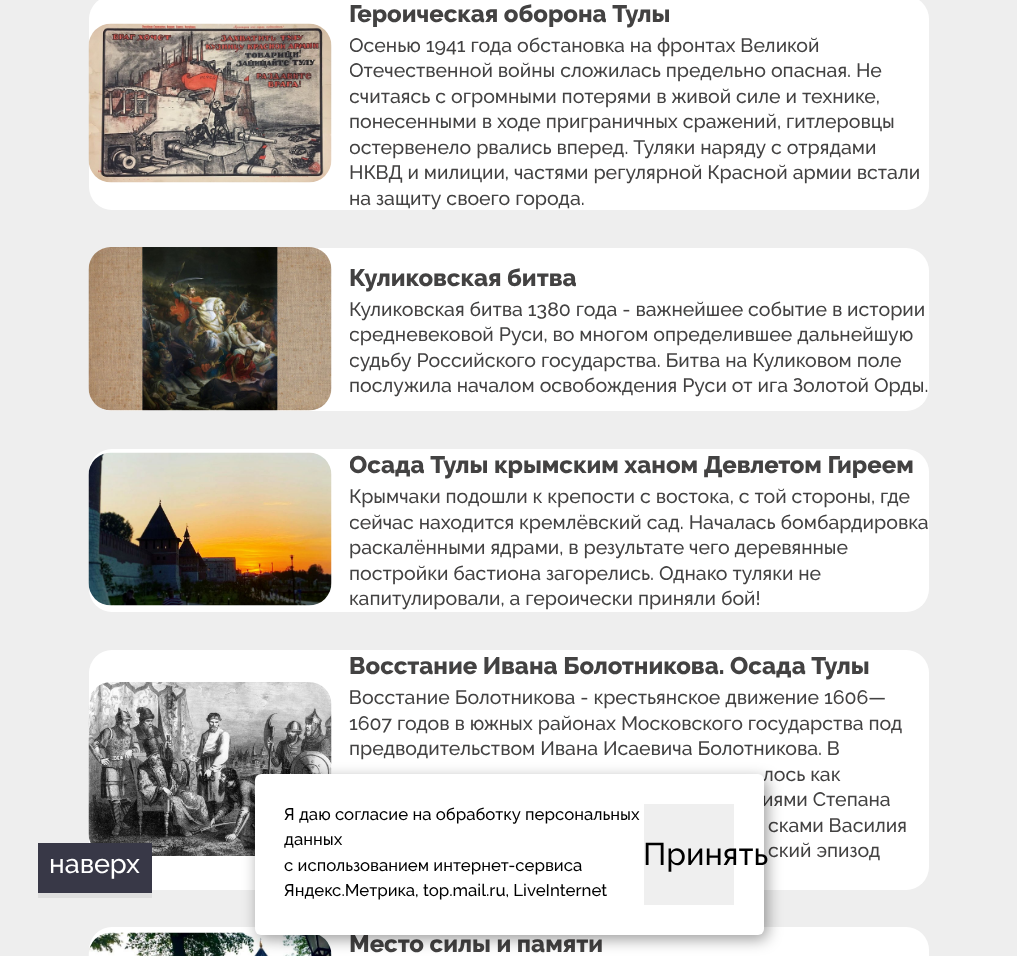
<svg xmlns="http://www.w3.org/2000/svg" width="1017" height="956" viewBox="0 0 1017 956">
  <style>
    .t1 { font: 800 24px Raleway; fill: #434242; }
    .t2 { font: 500 19.5px Raleway; fill: #434242; }
    .t3 { font: 500 27px Raleway; fill: #fff; }
    .t4 { font: 500 16.8px Raleway; fill: #000; }
    .t5 { font: 500 31.5px Raleway; fill: #000; }
  </style>
  <defs>
    <clipPath id="clip1"><rect x="350" y="0" width="579" height="210"/></clipPath>
    <clipPath id="clip2"><rect x="350" y="260" width="579" height="138"/></clipPath>
    <clipPath id="clip3"><rect x="350" y="449" width="579" height="163"/></clipPath>
  </defs>
  <rect width="100%" height="100%" fill="#eee"/>
  <rect x="89" y="-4" width="840" height="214" rx="23" fill="#fff"/>
  <image x="88" y="23" width="244" height="160" href="images/1.png"/>
  <text x="349" y="22" class="t1">Героическая оборона Тулы</text>
  <g clip-path="url(#clip1)">
    <text x="349" y="52" class="t2">Осенью 1941 года обстановка на фронтах Великой</text>
    <text x="349" y="77" class="t2">Отечественной войны сложилась предельно опасная. Не</text>
    <text x="349" y="103" class="t2">считаясь с огромными потерями в живой силе и технике,</text>
  </g>
  <text x="349" y="128" class="t2">понесенными в ходе приграничных сражений, гитлеровцы</text>
  <g clip-path="url(#clip1)">
    <text x="349" y="154" class="t2">остервенело рвались вперед. Туляки наряду с отрядами</text>
  </g>
  <text x="349" y="179" class="t2">НКВД и милиции, частями регулярной Красной армии встали</text>
  <text x="349" y="205" class="t2">на защиту своего города.</text>
  <rect x="89" y="248" width="840" height="163" rx="23" fill="#fff"/>
  <image x="88" y="247" width="244" height="164" href="images/2.png"/>
  <text x="349" y="286" class="t1">Куликовская битва</text>
  <text x="349" y="316" class="t2">Куликовская битва 1380 года - важнейшее событие в истории</text>
  <g clip-path="url(#clip2)">
    <text x="349" y="341" class="t2">средневековой Руси, во многом определившее дальнейшую</text>
    <text x="349" y="367" class="t2">судьбу Российского государства. Битва на Куликовом поле</text>
  </g>
  <text x="349" y="392" class="t2">послужила началом освобождения Руси от ига Золотой Орды.</text>
  <rect x="89" y="449" width="840" height="163" rx="23" fill="#fff"/>
  <image x="88" y="452" width="244" height="154" href="images/3.png"/>
  <g clip-path="url(#clip3)">
    <text x="349" y="473" class="t1">Осада Тулы крымским ханом Девлетом Гиреем</text>
  </g>
  <text x="349" y="503" class="t2">Крымчаки подошли к крепости с востока, с той стороны, где</text>
  <g clip-path="url(#clip3)">
    <text x="349" y="529" class="t2">сейчас находится кремлёвский сад. Началась бомбардировка</text>
  </g>
  <text x="349" y="554" class="t2">раскалёнными ядрами, в результате чего деревянные</text>
  <text x="349" y="580" class="t2">постройки бастиона загорелись. Однако туляки не</text>
  <text x="349" y="605" class="t2">капитулировали, а героически приняли бой!</text>
  <rect x="89" y="650" width="840" height="240" rx="23" fill="#fff"/>
  <image x="88" y="682" width="244" height="174" href="images/4.png"/>
  <text x="349" y="674" class="t1">Восстание Ивана Болотникова. Осада Тулы</text>
  <text x="349" y="704" class="t2">Восстание Болотникова - крестьянское движение 1606—</text>
  <text x="349" y="730" class="t2">1607 годов в южных районах Московского государства под</text>
  <text x="349" y="755" class="t2">предводительством Ивана Исаевича Болотникова. В</text>
  <text x="763" y="781" class="t2">лось как</text>
  <text x="762" y="806" class="t2">иями Степана</text>
  <text x="768" y="832" class="t2">сками Василия</text>
  <text x="768" y="857" class="t2">ский эпизод</text>
  <rect x="89" y="927" width="840" height="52" rx="23" fill="#fff"/>
  <image x="88" y="932" width="244" height="24" href="images/5.png"/>
  <text x="349" y="952" class="t1">Место силы и памяти</text>
  <rect x="38" y="843" width="114" height="50" fill="#383847"/>
  <rect x="38" y="893" width="114" height="5" fill="#dedede"/>
  <text x="49" y="873" class="t3">наверх</text>
  <rect x="258" y="779" width="509" height="160" rx="6" fill="#00000066" filter="blur(7.5px)"/>
  <rect x="255" y="774" width="509" height="161" rx="6" fill="#fff"/>
  <text x="284" y="820" class="t4">Я даю согласие на обработку персональных</text>
  <text x="284" y="845" class="t4">данных</text>
  <text x="284" y="871" class="t4">с использованием интернет-сервиса</text>
  <text x="284" y="896" class="t4">Яндекс.Метрика, top.mail.ru, LiveInternet</text>
  <rect x="644" y="804" width="90" height="101" fill="#efefef"/>
  <text x="643" y="865" class="t5">Принять</text>
</svg>
